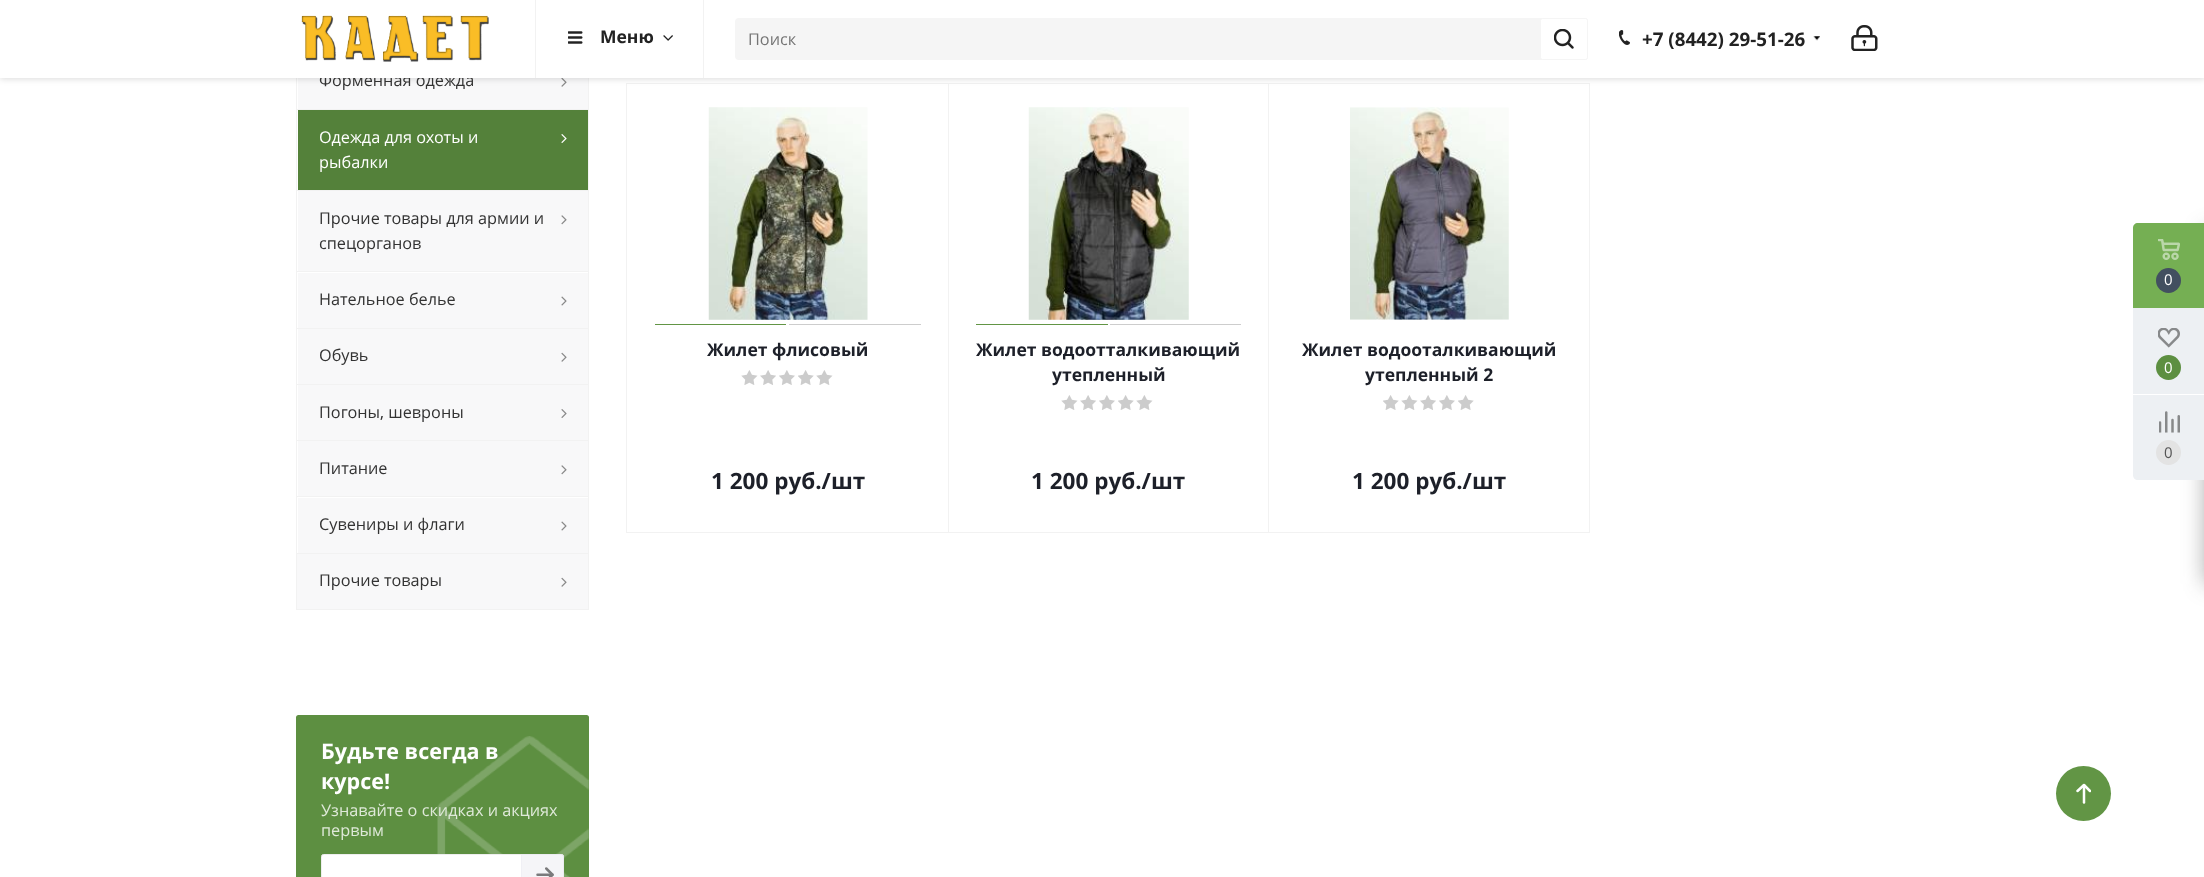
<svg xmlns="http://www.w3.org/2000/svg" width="2204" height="877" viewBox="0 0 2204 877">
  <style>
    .t1 { font: 16.25px Open Sans; fill: #333; }
    .t2 { font: bold 17.5px Open Sans; fill: #222; }
    .t3 { font: 16.25px Open Sans; fill: #757575; }
    .t4 { font: bold 18.75px Open Sans; fill: #222; }
    .t5 { font: 16.25px Open Sans; fill: #fff; }
    .t6 { font: bold 21.5px Open Sans; fill: #fff; }
    .t7 { font: 16.25px Open Sans; fill: #dfe9d9; }
    .t8 { font: bold 17.5px Open Sans; fill: #1d2029; }
    .t9 { font: bold 22.5px Open Sans; fill: #1d2029; }
    .t10 { font: 15px Open Sans; fill: #fff; }
    .t11 { font: 15px Open Sans; fill: #555; }
  </style>
  <defs>
    <clipPath id="clip1"><rect x="2076" y="784" width="15" height="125"/></clipPath>
  </defs>
  <rect width="100%" height="100%" fill="#fff"/>
  <rect x="298" y="78" width="290" height="31" fill="#f8f8f9"/>
  <rect x="588" y="78" width="1" height="31" fill="#f2f2f2"/>
  <rect x="296" y="78" width="1" height="31" fill="#f2f2f2"/>
  <image x="561" y="78" width="6" height="9" href="images/8.png"/>
  <rect x="626.5" y="83.5" width="322" height="449" fill="none" stroke="#f2f2f2"/>
  <rect x="948.5" y="83.5" width="320" height="449" fill="none" stroke="#f2f2f2"/>
  <rect x="1268.5" y="83.5" width="321" height="449" fill="none" stroke="#f2f2f2"/>
  <rect x="0" y="1" width="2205" height="78" fill="#00000024" filter="blur(3px)"/>
  <text x="319" y="86" class="t1">Форменная одежда</text>
  <rect x="0" y="0" width="2204" height="78" fill="#fff"/>
  <rect x="535" y="0" width="1" height="78" fill="#f2f2f2"/>
  <image x="301" y="15" width="188" height="47" href="images/1.png"/>
  <rect x="703" y="0" width="1" height="78" fill="#f2f2f2"/>
  <image x="568" y="31" width="15" height="13" href="images/2.png"/>
  <text x="600" y="43" class="t2">Меню</text>
  <image x="663" y="35" width="10" height="6" href="images/3.png"/>
  <rect x="735" y="18" width="853" height="42" rx="4" fill="#f5f5f5"/>
  <text x="748" y="45" class="t3">Поиск</text>
  <rect x="1540.5" y="18.5" width="47" height="41" rx="2" fill="#fff" stroke="#f5f5f5"/>
  <image x="1554" y="29" width="20" height="20" href="images/4.png"/>
  <image x="1619" y="30" width="11" height="15" href="images/5.png"/>
  <text x="1642" y="46" class="t4">+7 (8442) 29-51-26</text>
  <image x="1813" y="36" width="7" height="5" href="images/6.png"/>
  <image x="1851" y="25" width="27" height="26" href="images/7.png"/>
  <rect x="298" y="110" width="290" height="80" fill="#54813a"/>
  <rect x="296" y="109" width="293" height="1" fill="#f2f2f2"/>
  <rect x="588" y="109" width="1" height="81" fill="#f2f2f2"/>
  <rect x="296" y="109" width="1" height="81" fill="#f2f2f2"/>
  <text x="319" y="143" class="t5">Одежда для охоты и</text>
  <image x="561" y="134" width="6" height="9" href="images/9.png"/>
  <text x="319" y="168" class="t5">рыбалки</text>
  <rect x="298" y="191" width="290" height="80" fill="#f8f8f9"/>
  <rect x="296" y="190" width="293" height="1" fill="#f2f2f2"/>
  <rect x="588" y="190" width="1" height="81" fill="#f2f2f2"/>
  <rect x="296" y="190" width="1" height="81" fill="#f2f2f2"/>
  <text x="319" y="224" class="t1">Прочие товары для армии и</text>
  <image x="561" y="215" width="6" height="10" href="images/10.png"/>
  <text x="319" y="249" class="t1">спецорганов</text>
  <rect x="298" y="273" width="290" height="55" fill="#f8f8f9"/>
  <rect x="296" y="271" width="293" height="1" fill="#f2f2f2"/>
  <rect x="588" y="271" width="1" height="57" fill="#f2f2f2"/>
  <rect x="296" y="271" width="1" height="57" fill="#f2f2f2"/>
  <text x="319" y="305" class="t1">Нательное белье</text>
  <image x="561" y="296" width="6" height="10" href="images/11.png"/>
  <rect x="298" y="329" width="290" height="55" fill="#f8f8f9"/>
  <rect x="296" y="328" width="293" height="1" fill="#f2f2f2"/>
  <rect x="588" y="328" width="1" height="56" fill="#f2f2f2"/>
  <rect x="296" y="328" width="1" height="56" fill="#f2f2f2"/>
  <text x="319" y="361" class="t1">Обувь</text>
  <image x="561" y="352" width="6" height="10" href="images/12.png"/>
  <rect x="298" y="385" width="290" height="55" fill="#f8f8f9"/>
  <rect x="296" y="384" width="293" height="1" fill="#f2f2f2"/>
  <rect x="588" y="384" width="1" height="56" fill="#f2f2f2"/>
  <rect x="296" y="384" width="1" height="56" fill="#f2f2f2"/>
  <text x="319" y="418" class="t1">Погоны, шевроны</text>
  <image x="561" y="409" width="6" height="9" href="images/13.png"/>
  <rect x="298" y="441" width="290" height="55" fill="#f8f8f9"/>
  <rect x="296" y="440" width="293" height="1" fill="#f2f2f2"/>
  <rect x="588" y="440" width="1" height="56" fill="#f2f2f2"/>
  <rect x="296" y="440" width="1" height="56" fill="#f2f2f2"/>
  <text x="319" y="474" class="t1">Питание</text>
  <image x="561" y="465" width="6" height="10" href="images/10.png"/>
  <rect x="298" y="498" width="290" height="55" fill="#f8f8f9"/>
  <rect x="296" y="496" width="293" height="1" fill="#f2f2f2"/>
  <rect x="588" y="496" width="1" height="57" fill="#f2f2f2"/>
  <rect x="296" y="496" width="1" height="57" fill="#f2f2f2"/>
  <text x="319" y="530" class="t1">Сувениры и флаги</text>
  <image x="561" y="521" width="6" height="10" href="images/11.png"/>
  <rect x="296.5" y="553.5" width="292" height="56" fill="#f8f8f9" stroke="#f2f2f2"/>
  <text x="319" y="586" class="t1">Прочие товары</text>
  <image x="561" y="577" width="6" height="10" href="images/12.png"/>
  <rect x="296" y="715" width="293" height="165" rx="2.5" fill="#5d8f41"/>
  <text x="321" y="759" class="t6">Будьте всегда в</text>
  <image x="437" y="736" width="152" height="141" href="images/14.png"/>
  <text x="321" y="789" class="t6">курсе!</text>
  <text x="321" y="816" class="t7">Узнавайте о скидках и акциях</text>
  <text x="321" y="836" class="t7">первым</text>
  <rect x="321.5" y="854.5" width="242" height="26" rx="2" fill="#fff" stroke="#eee"/>
  <path d="M521 854H561.5C563 854 564 855 564 856.5V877.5C564 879 563 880 561.5 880H521Z" fill="#ececf280"/>
  <image x="536" y="867" width="18" height="10" href="images/15.png"/>
  <path d="M521.5 854.5H561.5C562.5 854.5 563.5 855.5 563.5 856.5V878.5C563.5 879.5 562.5 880.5 561.5 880.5H521.5Z" fill="none" stroke="#ececf280"/>
  <image x="708" y="107" width="160" height="213" href="images/16.png"/>
  <rect x="655" y="324" width="131" height="1" fill="#629545"/>
  <rect x="789" y="324" width="132" height="1" fill="#cdcdcd"/>
  <text x="707" y="356" class="t8">Жилет флисовый</text>
  <image x="741" y="370" width="17" height="15" href="images/17.png"/>
  <image x="760" y="370" width="16" height="15" href="images/18.png"/>
  <image x="779" y="370" width="16" height="15" href="images/19.png"/>
  <image x="798" y="370" width="16" height="15" href="images/20.png"/>
  <image x="816" y="370" width="17" height="15" href="images/17.png"/>
  <text x="711" y="489" class="t9">1 200 руб./шт</text>
  <image x="1028" y="107" width="161" height="213" href="images/21.png"/>
  <rect x="976" y="324" width="132" height="1" fill="#629545"/>
  <rect x="1110" y="324" width="131" height="1" fill="#cdcdcd"/>
  <text x="976" y="356" class="t8">Жилет водоотталкивающий</text>
  <text x="1052" y="381" class="t8">утепленный</text>
  <image x="1061" y="395" width="17" height="15" href="images/17.png"/>
  <image x="1080" y="395" width="16" height="15" href="images/18.png"/>
  <image x="1099" y="395" width="16" height="15" href="images/19.png"/>
  <image x="1118" y="395" width="16" height="15" href="images/20.png"/>
  <image x="1136" y="395" width="17" height="15" href="images/17.png"/>
  <text x="1031" y="489" class="t9">1 200 руб./шт</text>
  <image x="1350" y="107" width="159" height="213" href="images/22.png"/>
  <text x="1302" y="356" class="t8">Жилет водооталкивающий</text>
  <text x="1365" y="381" class="t8">утепленный 2</text>
  <image x="1383" y="395" width="16" height="15" href="images/20.png"/>
  <image x="1401" y="395" width="17" height="15" href="images/17.png"/>
  <image x="1420" y="395" width="16" height="15" href="images/18.png"/>
  <image x="1439" y="395" width="16" height="15" href="images/19.png"/>
  <image x="1458" y="395" width="16" height="15" href="images/20.png"/>
  <text x="1352" y="489" class="t9">1 200 руб./шт</text>
  <rect x="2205" y="230" width="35" height="354" rx="2.5" fill="#2c2c2c66" filter="blur(11px)"/>
  <path d="M2138 223H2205V480H2138C2135 480 2133 478 2133 475V228C2133 225 2135 223 2138 223Z" fill="#edf0f3"/>
  <path d="M2138 223H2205V308H2133V228C2133 225 2135 223 2138 223Z" fill="#75af53"/>
  <image x="2158" y="239" width="22" height="21" href="images/23.png"/>
  <circle cx="2168.5" cy="280.5" r="12.5" fill="#424f60"/>
  <text x="2164" y="285" class="t10">0</text>
  <image x="2158" y="328" width="22" height="20" href="images/24.png"/>
  <circle cx="2168.5" cy="367.5" r="12.5" fill="#5d8f41"/>
  <text x="2164" y="373" class="t10">0</text>
  <rect x="2133" y="394" width="71" height="1" fill="#fff"/>
  <image x="2159" y="411" width="21" height="22" href="images/25.png"/>
  <circle cx="2168.5" cy="452.5" r="12.5" fill="#e3e3e3"/>
  <text x="2164" y="458" class="t11">0</text>
  <circle cx="2083.5" cy="793.5" r="27.5" fill="#629545"/>
  <path d="M2084 785V802.5" fill="none" stroke="#fff" stroke-width="2.5" stroke-linecap="round" stroke-linejoin="round"/>
  <g clip-path="url(#clip1)">
    <path d="M2077.5 791L2084 785L2090 791" fill="none" stroke="#fff" stroke-width="2.5" stroke-linecap="round" stroke-linejoin="round"/>
  </g>
</svg>
